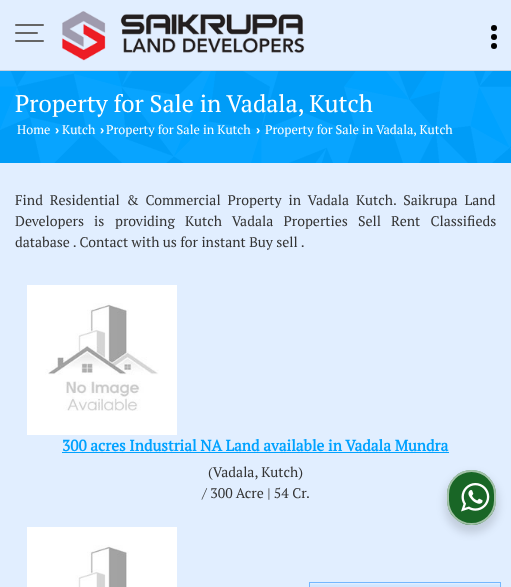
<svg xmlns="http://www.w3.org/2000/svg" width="511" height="587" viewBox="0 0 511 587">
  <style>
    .t1 { font: 24px PT Serif; fill: #fff; }
    .t2 { font: 12.6px PT Serif; fill: #fff; }
    .t3 { font: bold 12.6px Liberation Sans; fill: #fff; }
    .t4 { font: 14px PT Serif; fill: #333; }
    .t5 { font: bold 15.4px PT Serif; fill: #00a2ff; }
  </style>
  <rect width="100%" height="100%" fill="#e1eeff"/>
  <rect x="0" y="70" width="511" height="1" fill="#c4cfde"/>
  <rect x="15" y="24" width="29" height="2" rx="1" fill="#666"/>
  <rect x="15" y="32" width="23" height="2" rx="1" fill="#666"/>
  <rect x="15" y="40" width="29" height="2" rx="1" fill="#666"/>
  <image x="62" y="11" width="243" height="50" href="images/1.png"/>
  <circle cx="494" cy="37" r="3" fill="#000"/>
  <circle cx="494" cy="28" r="3" fill="#000"/>
  <circle cx="494" cy="46" r="3" fill="#000"/>
  <rect x="0" y="71" width="511" height="92" fill="#00a2ff"/>
  <image x="0" y="71" width="511" height="92" href="images/2.png"/>
  <text x="15" y="112" class="t1">Property for Sale in Vadala, Kutch</text>
  <text x="17" y="134" class="t2">Home</text>
  <text x="55" y="134" class="t3">›</text>
  <text x="62" y="134" class="t2">Kutch</text>
  <text x="100" y="134" class="t3">›</text>
  <text x="106" y="134" class="t2">Property for Sale in Kutch</text>
  <text x="256" y="134" class="t3">›</text>
  <text x="265" y="134" class="t2">Property for Sale in Vadala, Kutch</text>
  <text x="15" y="205" word-spacing="3.5" class="t4">Find Residential &amp; Commercial Property in Vadala Kutch. Saikrupa Land</text>
  <text x="15" y="226" word-spacing="6.75" class="t4">Developers is</text>
  <text x="115" y="226" word-spacing="6.75" class="t4">providing Kutch Vadala Properties Sell Rent Classifieds</text>
  <text x="15" y="247" class="t4">database . Contact with us for instant Buy sell .</text>
  <image x="27" y="285" width="150" height="150" href="images/3.png"/>
  <text x="62" y="451" class="t5">300 acres Industrial NA Land available in Vadala Mundra</text>
  <rect x="62" y="452" width="387" height="1" fill="#00a2ff"/>
  <text x="208" y="477" class="t4">(Vadala, Kutch)</text>
  <text x="202" y="498" class="t4">/ 300 Acre | 54 Cr.</text>
  <image x="27" y="527" width="150" height="60" href="images/4.png"/>
  <rect x="309.5" y="582.5" width="191" height="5" fill="none" stroke="#74b7ff"/>
  <image x="310" y="583" width="190" height="4" href="images/5.png"/>
  <rect x="445" y="474" width="53" height="59" rx="26.5" fill="#00000024" filter="blur(4px)"/>
  <rect x="447" y="470" width="49" height="55" rx="24.5" fill="#196626"/>
  <rect x="448" y="471" width="47" height="53" rx="23.5" fill="none" stroke="#ffffff99" stroke-width="2"/>
  <image x="461" y="483" width="29" height="29" href="images/6.png"/>
</svg>
